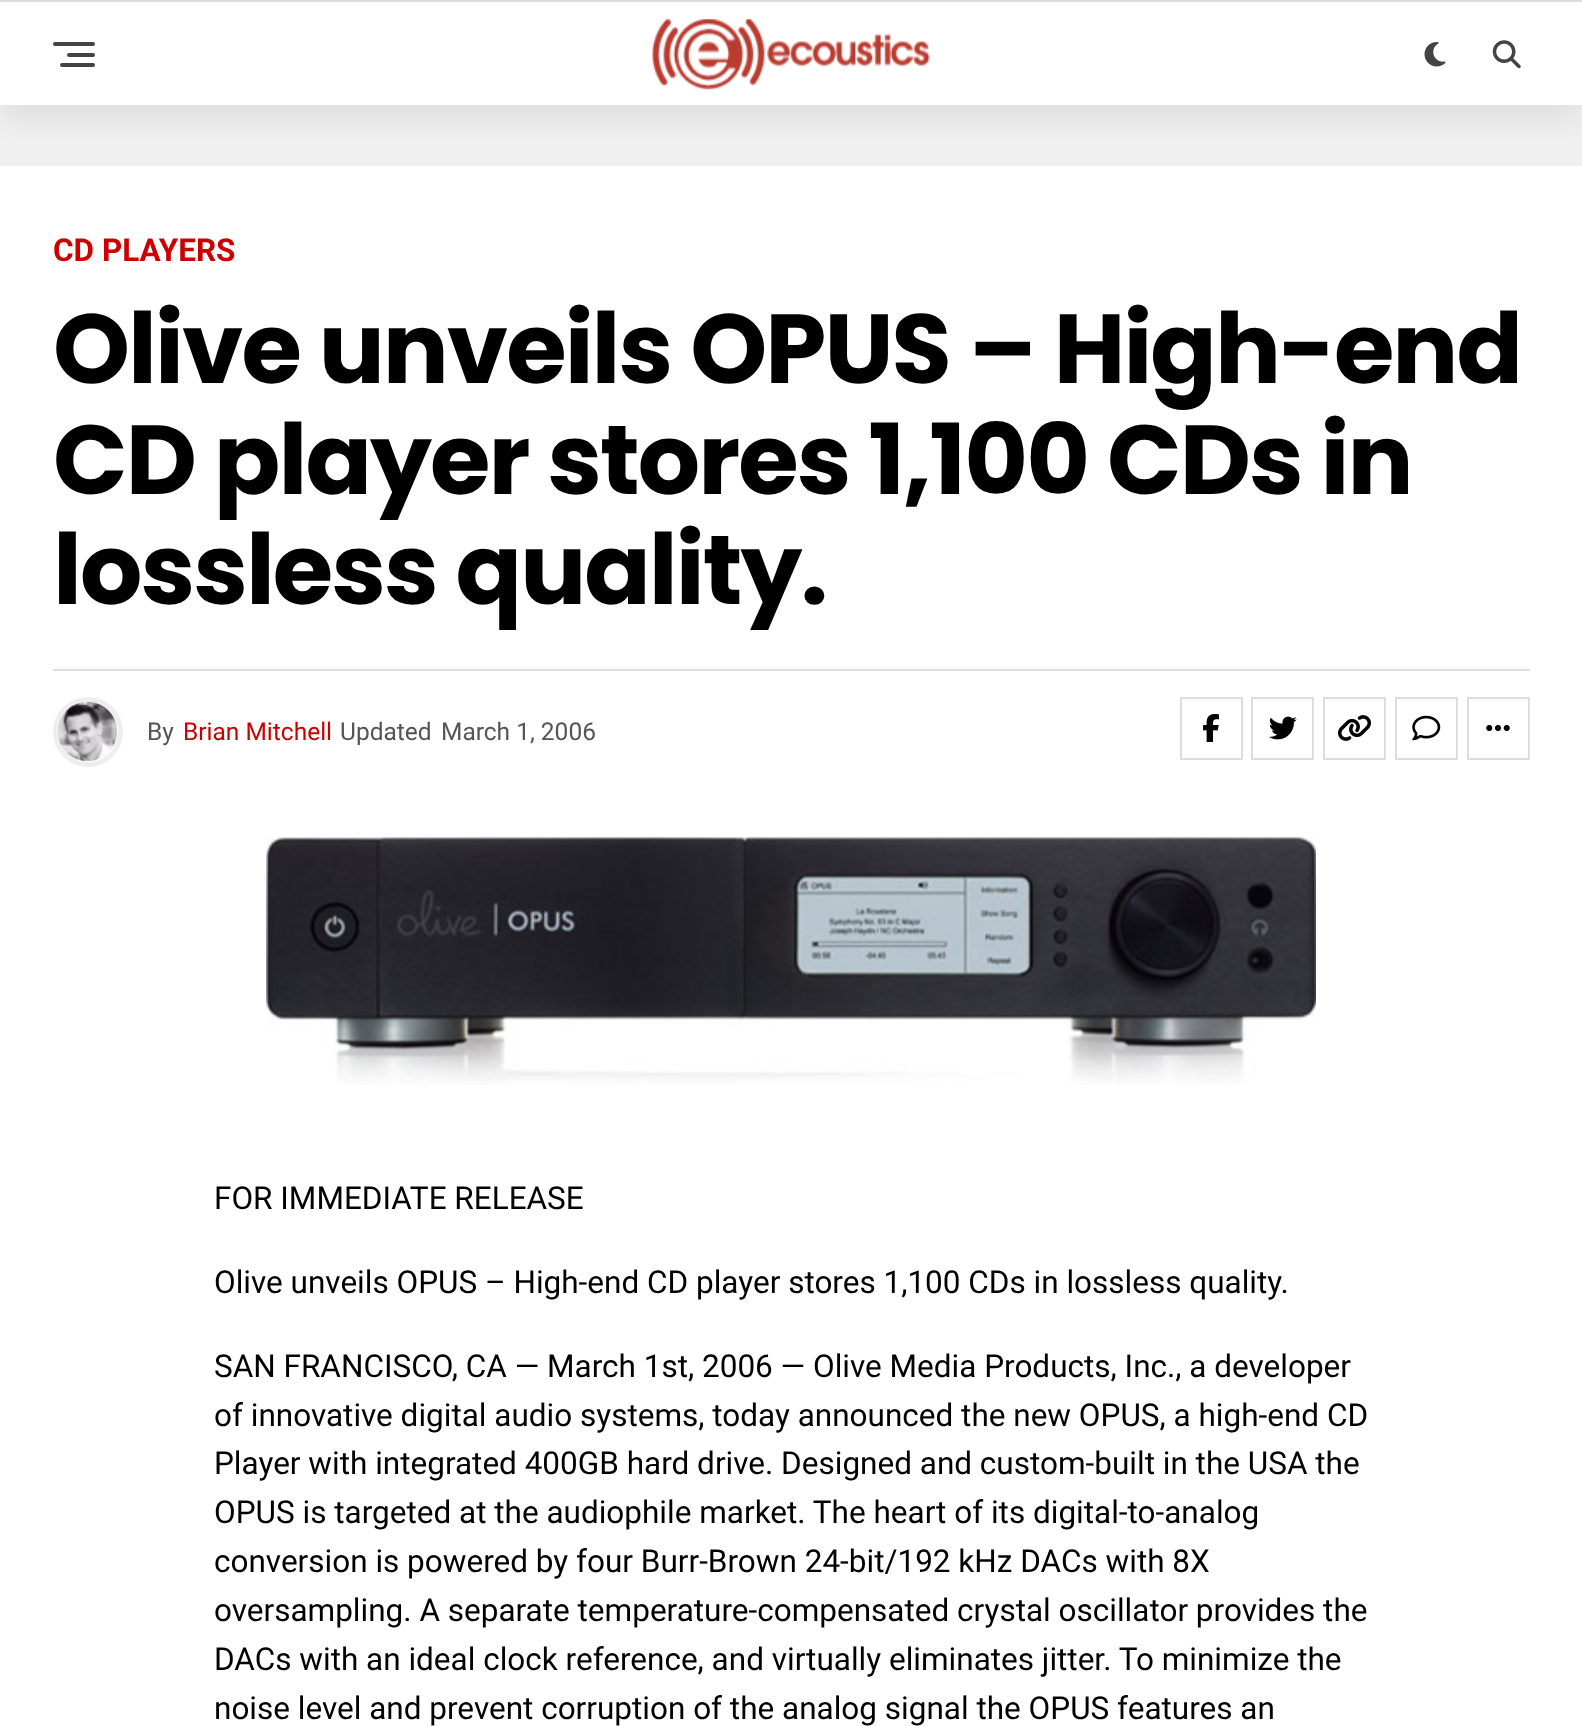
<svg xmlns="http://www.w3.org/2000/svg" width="1582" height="1726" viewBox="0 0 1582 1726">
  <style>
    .t1 { font: bold 31.5px Roboto; fill: #c00; }
    .t2 { font: bold 98px Poppins; letter-spacing: -1.95px; fill: #000; }
    .t3 { font: 24.5px Roboto; fill: #555; }
    .t4 { font: 24.5px Roboto; fill: #c00; }
    .t5 { font: 31.5px Roboto; fill: #000; }
  </style>
  <rect width="100%" height="100%" fill="#f0f0f0"/>
  <rect x="0" y="14" width="1582" height="105" fill="#15151e14" filter="blur(14px)"/>
  <rect x="0" y="2" width="1582" height="103" fill="#fff"/>
  <rect x="0" y="0" width="1582" height="2" fill="#ddd"/>
  <rect x="53" y="42" width="42" height="4" rx="2" fill="#444"/>
  <rect x="67" y="53" width="28" height="4" rx="2" fill="#444"/>
  <rect x="60" y="63" width="35" height="4" rx="2" fill="#444"/>
  <image x="652" y="19" width="278" height="71" href="images/1.png"/>
  <image x="1424" y="42" width="22" height="25" href="images/2.png"/>
  <image x="1492" y="40" width="29" height="29" href="images/3.png"/>
  <rect x="0" y="166" width="1582" height="1560" fill="#fff"/>
  <text x="53" y="261" class="t1">CD PLAYERS</text>
  <text x="53" y="383" class="t2">Olive unveils OPUS – High-end</text>
  <text x="53" y="494" class="t2">CD player stores 1,100 CDs in</text>
  <text x="53" y="604" class="t2">lossless quality.</text>
  <rect x="53" y="669" width="1477" height="2" fill="#ddd"/>
  <circle cx="88" cy="732" r="32.5" fill="none" stroke="#eee" stroke-width="5"/>
  <image x="58" y="702" width="60" height="60" href="images/4.png"/>
  <text x="147" y="740" class="t3">By</text>
  <text x="183" y="740" class="t4">Brian Mitchell</text>
  <text x="340" y="740" class="t3">Updated</text>
  <text x="441" y="740" class="t3">March 1, 2006</text>
  <rect x="1181" y="698" width="61" height="61" fill="none" stroke="#ddd" stroke-width="2"/>
  <image x="1203" y="714" width="16" height="28" href="images/5.png"/>
  <rect x="1252" y="698" width="61" height="61" fill="none" stroke="#ddd" stroke-width="2"/>
  <image x="1269" y="716" width="28" height="24" href="images/6.png"/>
  <rect x="1324" y="698" width="61" height="61" fill="none" stroke="#ddd" stroke-width="2"/>
  <image x="1338" y="715" width="33" height="26" href="images/7.png"/>
  <rect x="1396" y="698" width="61" height="61" fill="none" stroke="#ddd" stroke-width="2"/>
  <image x="1412" y="715" width="29" height="26" href="images/8.png"/>
  <rect x="1468" y="698" width="61" height="61" fill="none" stroke="#ddd" stroke-width="2"/>
  <image x="1486" y="724" width="24" height="8" href="images/9.png"/>
  <image x="266" y="837" width="1050" height="248" href="images/10.png"/>
  <text x="214" y="1209" class="t5">FOR IMMEDIATE RELEASE</text>
  <text x="214" y="1293" class="t5">Olive unveils OPUS – High-end CD player stores 1,100 CDs in lossless quality.</text>
  <text x="214" y="1377" class="t5">SAN FRANCISCO, CA — March 1st, 2006 — Olive Media Products, Inc., a developer</text>
  <text x="214" y="1426" class="t5">of innovative digital audio systems, today announced the new OPUS, a high-end CD</text>
  <text x="214" y="1474" class="t5">Player with integrated 400GB hard drive. Designed and custom-built in the USA the</text>
  <text x="214" y="1523" class="t5">OPUS is targeted at the audiophile market. The heart of its digital-to-analog</text>
  <text x="214" y="1572" class="t5">conversion is powered by four Burr-Brown 24-bit/192 kHz DACs with 8X</text>
  <text x="214" y="1621" class="t5">oversampling. A separate temperature-compensated crystal oscillator provides the</text>
  <text x="214" y="1670" class="t5">DACs with an ideal clock reference, and virtually eliminates jitter. To minimize the</text>
  <text x="214" y="1719" class="t5">noise level and prevent corruption of the analog signal the OPUS features an</text>
</svg>
